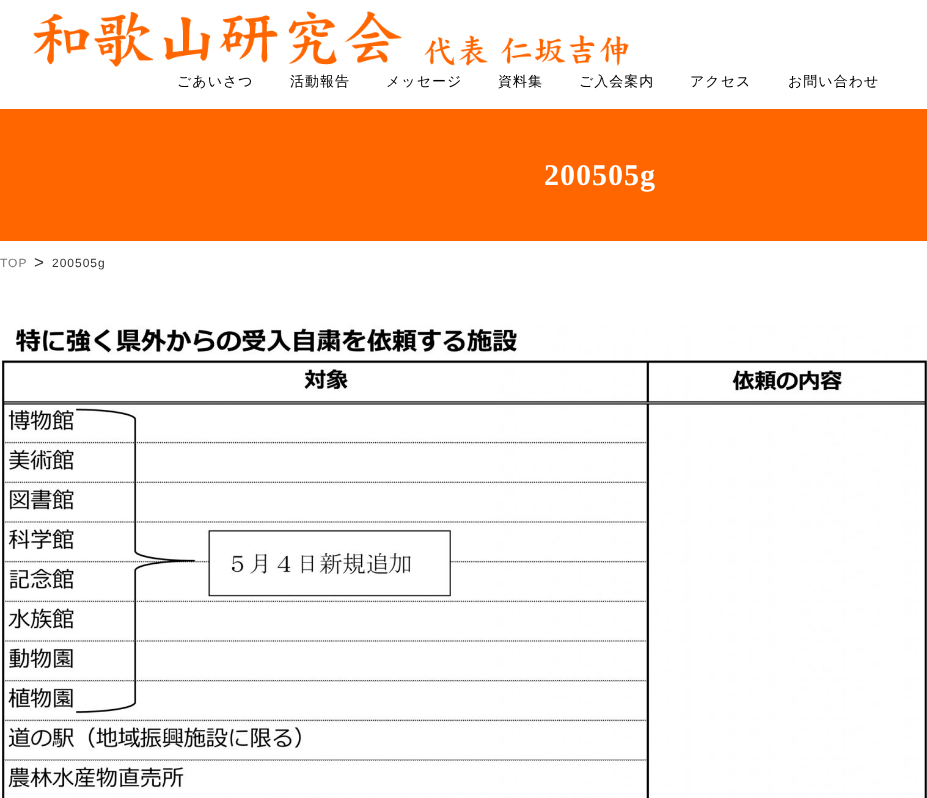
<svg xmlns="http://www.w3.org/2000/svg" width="927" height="798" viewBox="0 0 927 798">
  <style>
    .t1 { font: 500 14px WenQuanYi Zen Hei; letter-spacing: 1px; fill: #000; }
    .t2 { font: bold 30px Liberation Serif; letter-spacing: 1px; fill: #fff; }
    .t3 { font: 12px Liberation Sans; letter-spacing: 1px; fill: #777; }
    .t4 { font: 17px Liberation Sans; letter-spacing: 1px; fill: #333; }
    .t5 { font: 12px Liberation Sans; letter-spacing: 1px; fill: #333; }
  </style>
  <rect width="100%" height="100%" fill="#fff"/>
  <image x="33" y="11" width="596" height="56" href="images/1.png"/>
  <text x="177" y="86" class="t1">ごあいさつ</text>
  <text x="290" y="86" class="t1">活動報告</text>
  <text x="386" y="86" class="t1">メッセージ</text>
  <text x="498" y="86" class="t1">資料集</text>
  <text x="579" y="86" class="t1">ご入会案内</text>
  <text x="690" y="86" class="t1">アクセス</text>
  <text x="788" y="86" class="t1">お問い合わせ</text>
  <rect x="0" y="109" width="927" height="132" fill="#f60"/>
  <text x="544" y="185" class="t2">200505g</text>
  <text x="0" y="267" class="t3">TOP</text>
  <text x="34" y="268" class="t4">&gt;</text>
  <text x="52" y="267" class="t5">200505g</text>
  <image x="1" y="325" width="926" height="473" href="images/2.png"/>
</svg>
